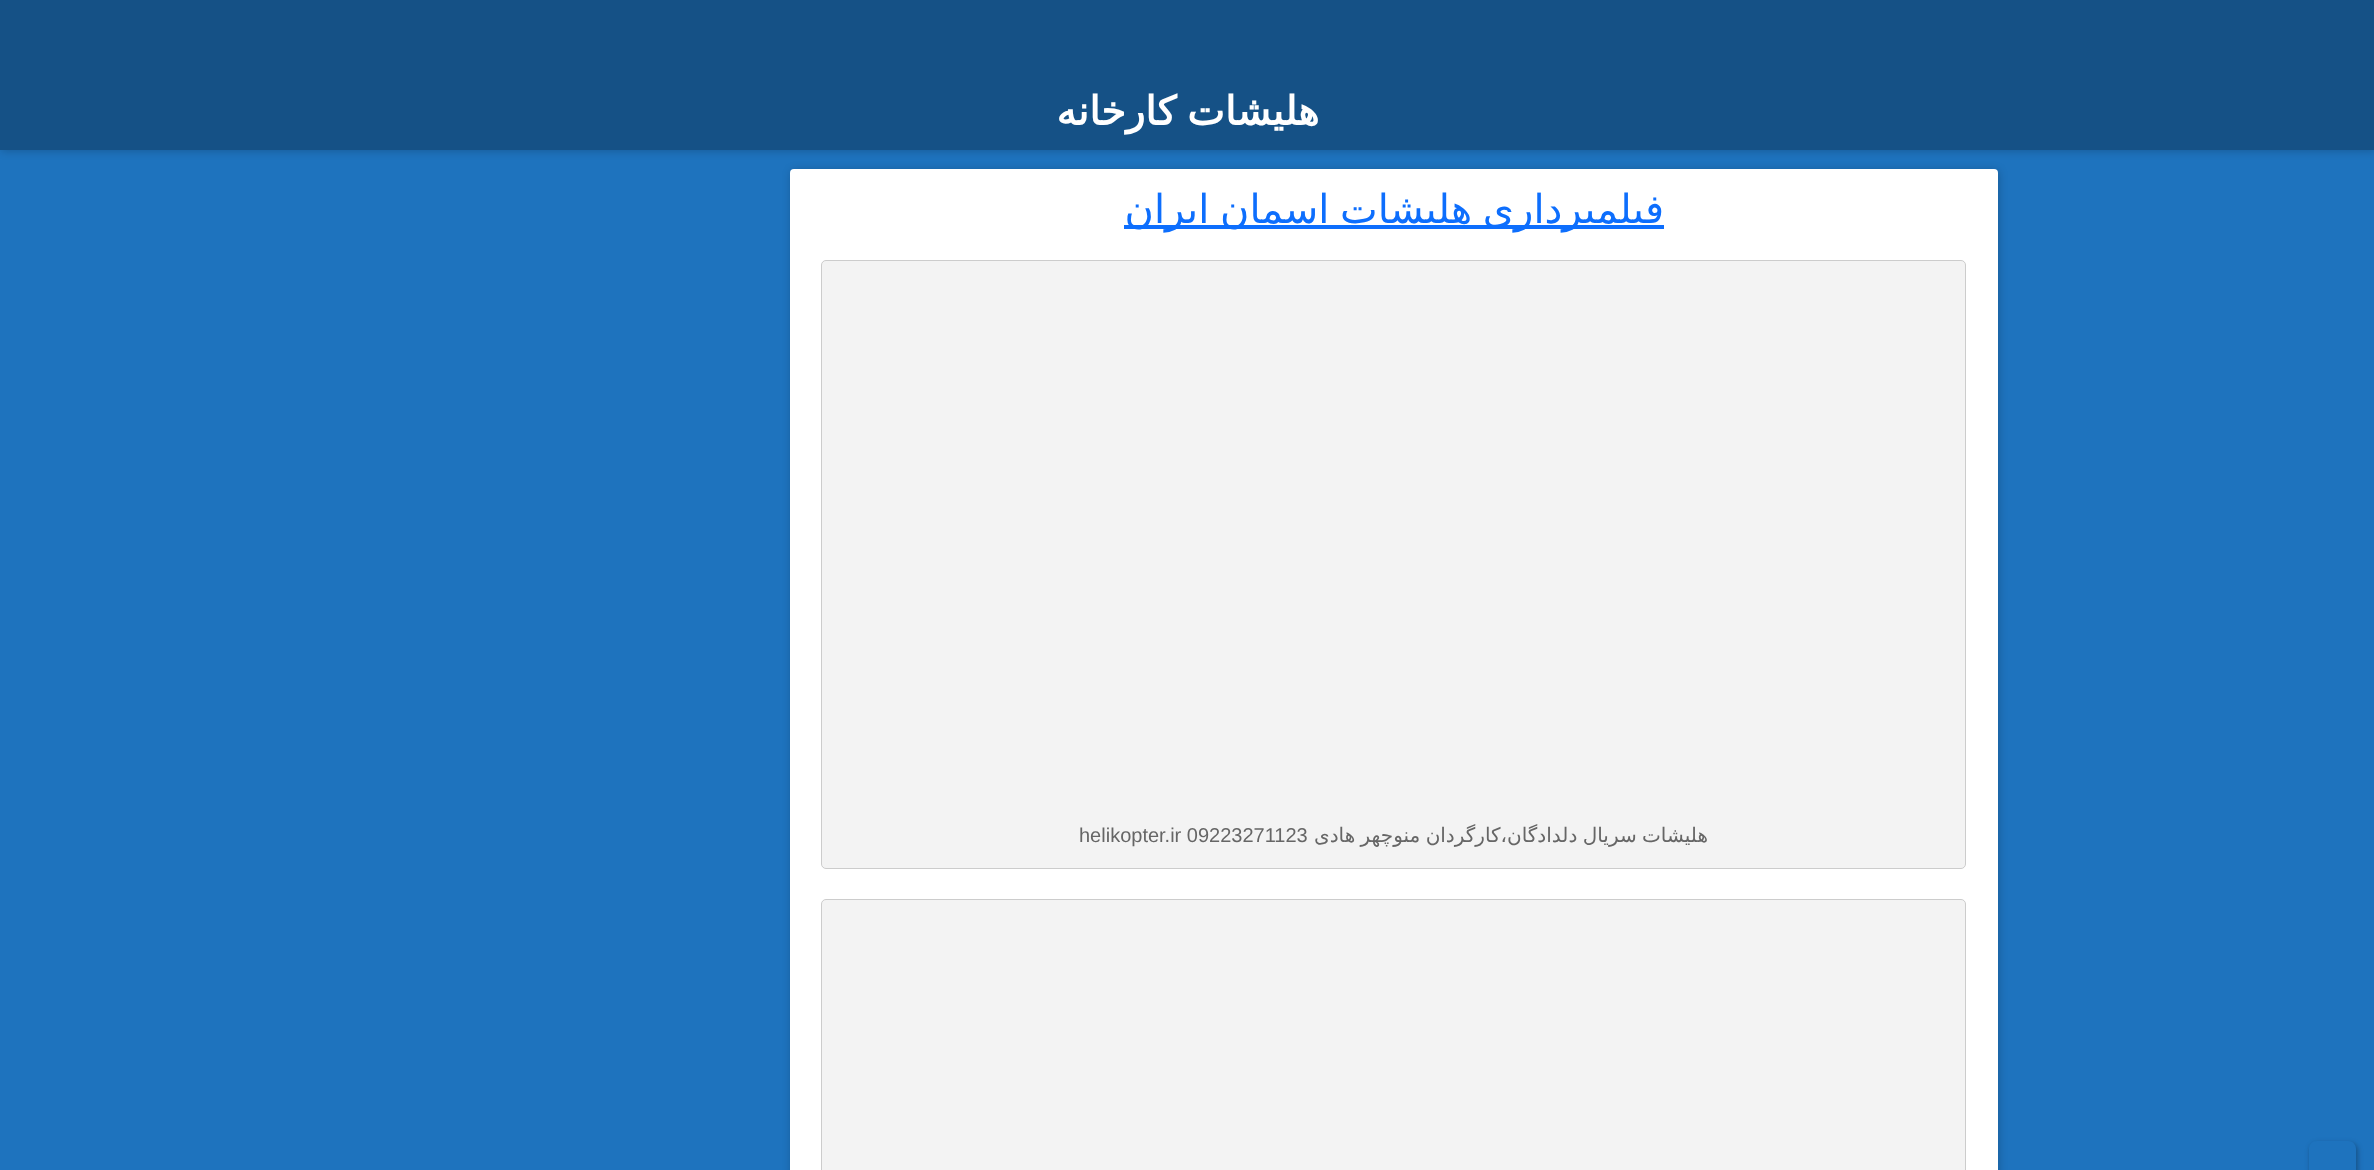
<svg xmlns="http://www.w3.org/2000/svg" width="2374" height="1170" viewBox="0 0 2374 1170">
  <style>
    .t1 { font: bold 40px DejaVu Sans; direction: rtl; fill: #fff; }
    .t2 { font: 40px DejaVu Sans; direction: rtl; fill: #0d6efd; }
    .t3 { font: 20px DejaVu Sans; direction: rtl; fill: #666; }
    .t4 { font: 20px Liberation Sans; fill: #666; }
  </style>
  <defs>
    <clipPath id="clip1"><path d="M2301 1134H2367V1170H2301ZM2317 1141H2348C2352.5 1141 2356 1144.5 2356 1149V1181C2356 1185.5 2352.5 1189 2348 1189H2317C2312.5 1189 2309 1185.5 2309 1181V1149C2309 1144.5 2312.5 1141 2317 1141Z" clip-rule="evenodd"/></clipPath>
  </defs>
  <rect width="100%" height="100%" fill="#1e73be"/>
  <rect x="1" y="1" width="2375" height="150" fill="#00000033" filter="blur(4.5px)"/>
  <rect x="0" y="0" width="2374" height="150" fill="#155186"/>
  <text x="1319" y="125" word-spacing="-2" class="t1">هلیشات کارخانه</text>
  <rect x="791" y="170" width="1208" height="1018" rx="4" fill="#00000033" filter="blur(4.5px)"/>
  <rect x="790" y="169" width="1208" height="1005" rx="4" fill="#fff"/>
  <rect x="1124" y="225" width="540" height="4" fill="#0d6efd"/>
  <text x="1664" y="223" class="t2">فیلمبرداری</text>
  <text x="1472" y="223" word-spacing="-2" class="t2">هلیشات اسمان ایران</text>
  <rect x="821.5" y="260.5" width="1144" height="608" rx="4.5" fill="#f3f3f3" stroke="#ccc"/>
  <text x="1708" y="842" word-spacing="-1" class="t3">هلیشات سریال دلدادگان،کارگردان منوچهر هادی</text>
  <text x="1079" y="842" class="t4">helikopter.ir 09223271123</text>
  <rect x="821.5" y="899.5" width="1144" height="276" rx="4.5" fill="#f3f3f3" stroke="#ccc"/>
  <g clip-path="url(#clip1)">
    <rect x="2310" y="1143" width="48" height="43" rx="8" fill="#09233966" filter="blur(2.5px)"/>
  </g>
</svg>
